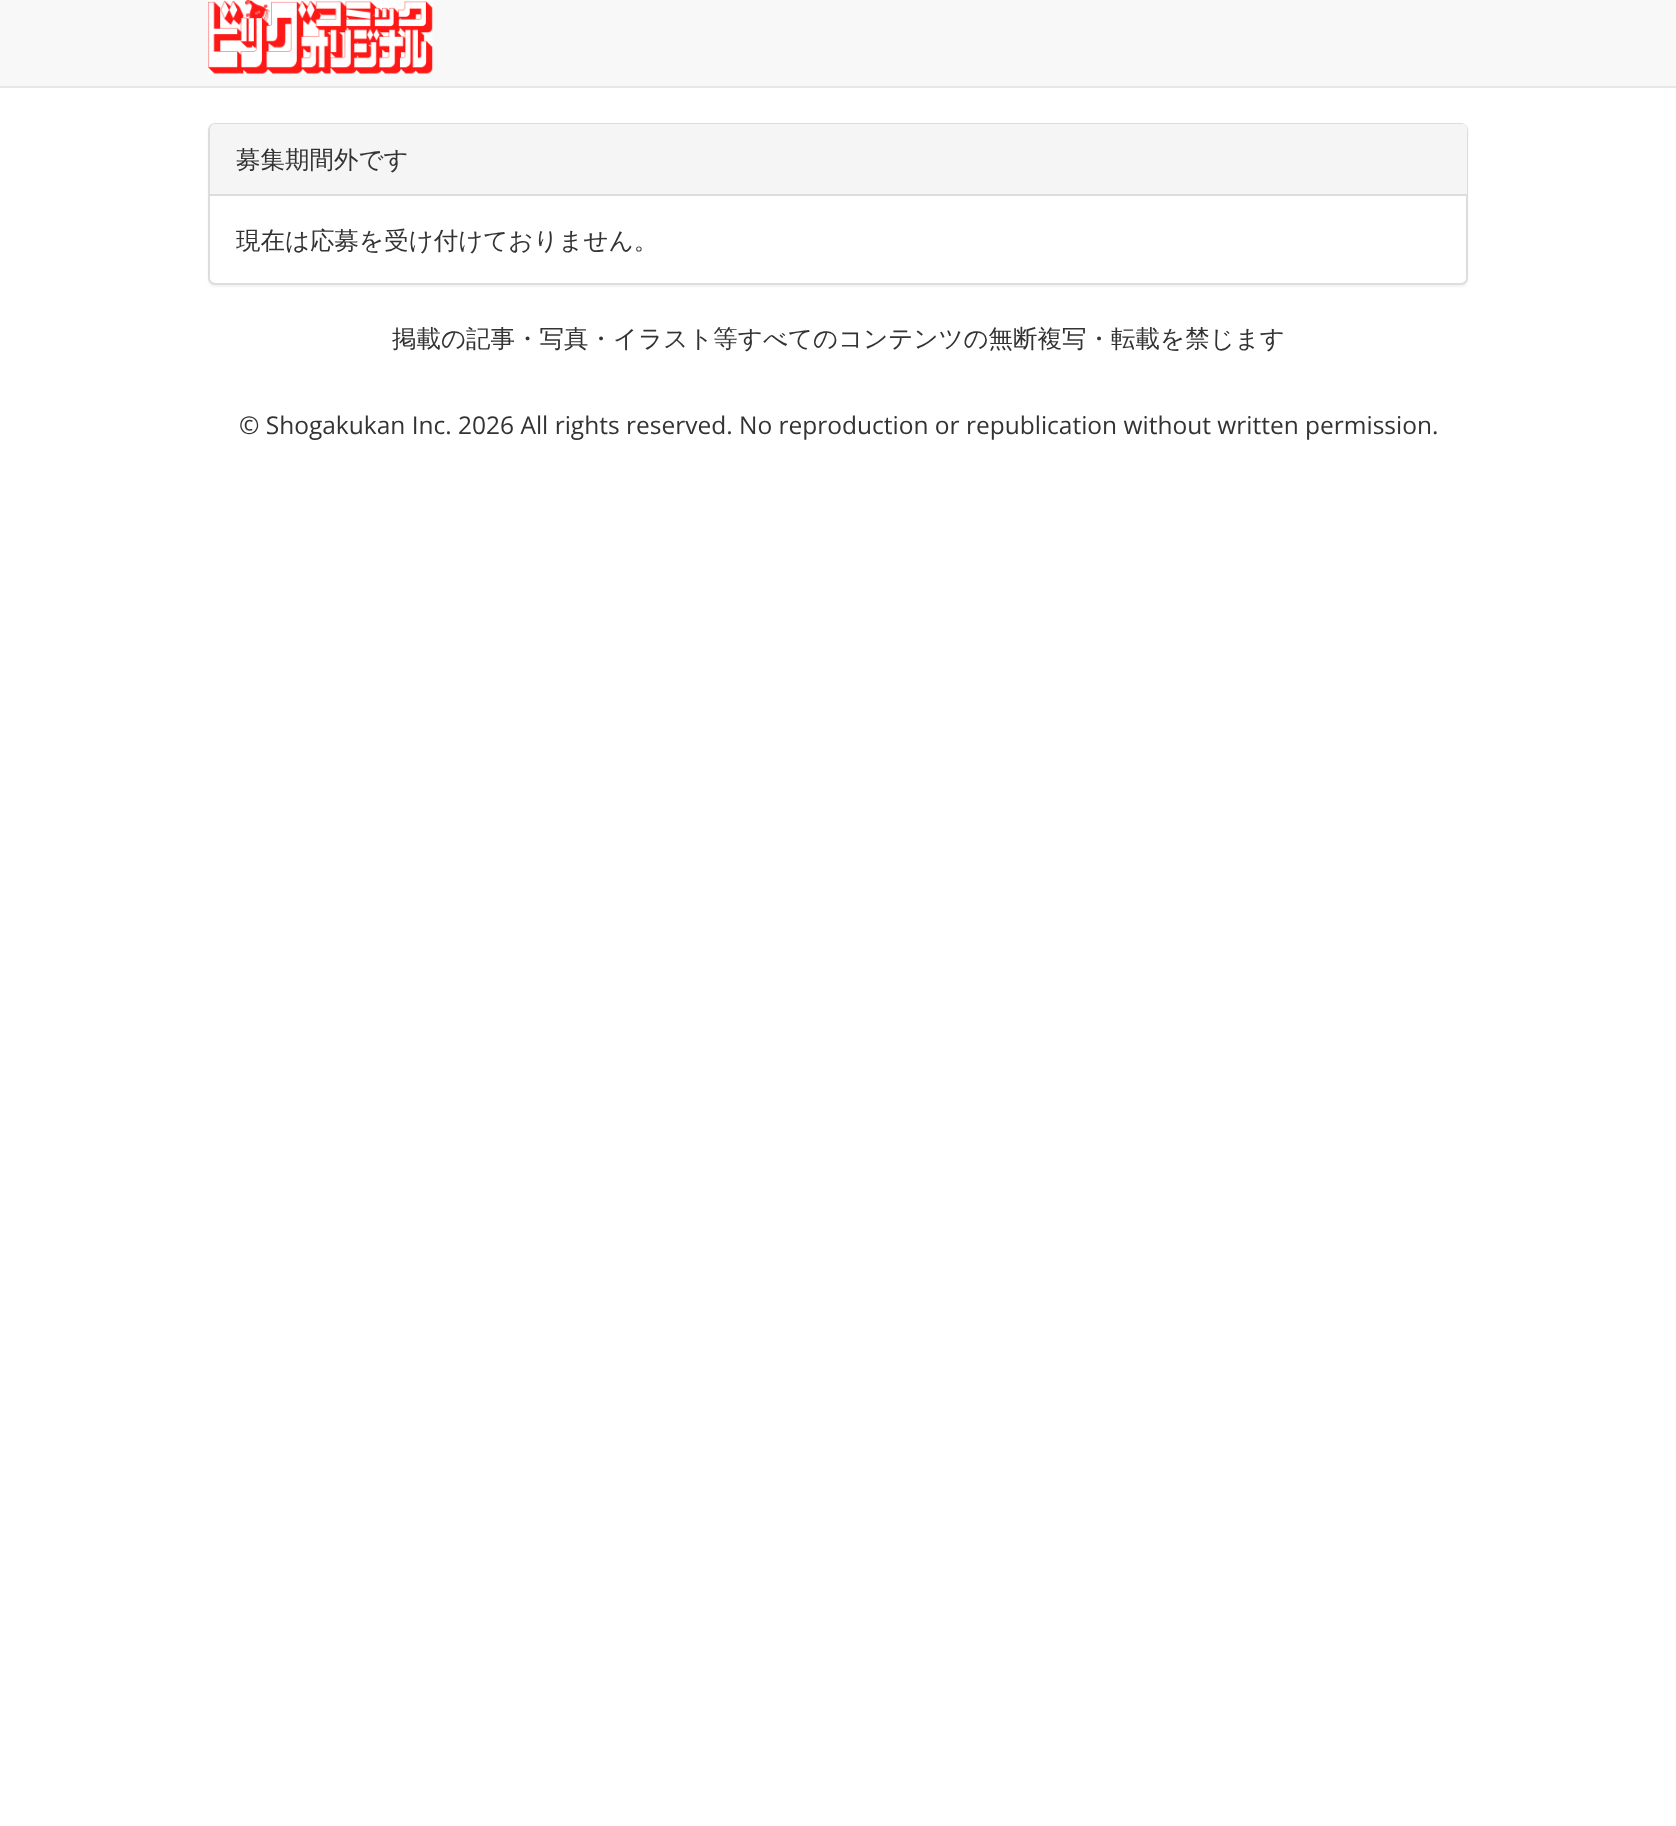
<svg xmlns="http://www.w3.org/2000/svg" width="1676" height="1826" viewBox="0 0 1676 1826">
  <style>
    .t1 { font: 500 24.5px WenQuanYi Zen Hei; fill: #333; }
    .t2 { font: 24.5px Open Sans; fill: #333; }
  </style>
  <rect width="100%" height="100%" fill="#fff"/>
  <rect x="0" y="0" width="1676" height="86" fill="#f8f8f8"/>
  <rect x="0" y="86" width="1676" height="2" fill="#e7e7e7"/>
  <image x="208" y="0" width="225" height="74" href="images/1.png"/>
  <rect x="208" y="124" width="1260" height="163" rx="7" fill="#0000000d" filter="blur(1px)"/>
  <rect x="209" y="124" width="1258" height="160" rx="6" fill="#fff" stroke="#ddd" stroke-width="2"/>
  <path d="M215 124H1462C1465 124 1467 126 1467 129V196H210V129C210 126 212 124 215 124Z" fill="#f5f5f5"/>
  <rect x="210" y="194" width="1257" height="2" fill="#ddd"/>
  <text x="236" y="168" class="t1">募集期間外です</text>
  <text x="236" y="249" class="t1">現在は応募を受け付けておりません。</text>
  <text x="392" y="347" class="t1">掲載の記事・写真・イラスト等すべてのコンテンツの無断複写・転載を禁じます</text>
  <text x="239" y="434" class="t2">© Shogakukan Inc. 2026 All rights reserved. No reproduction or republication without written permission.</text>
</svg>
